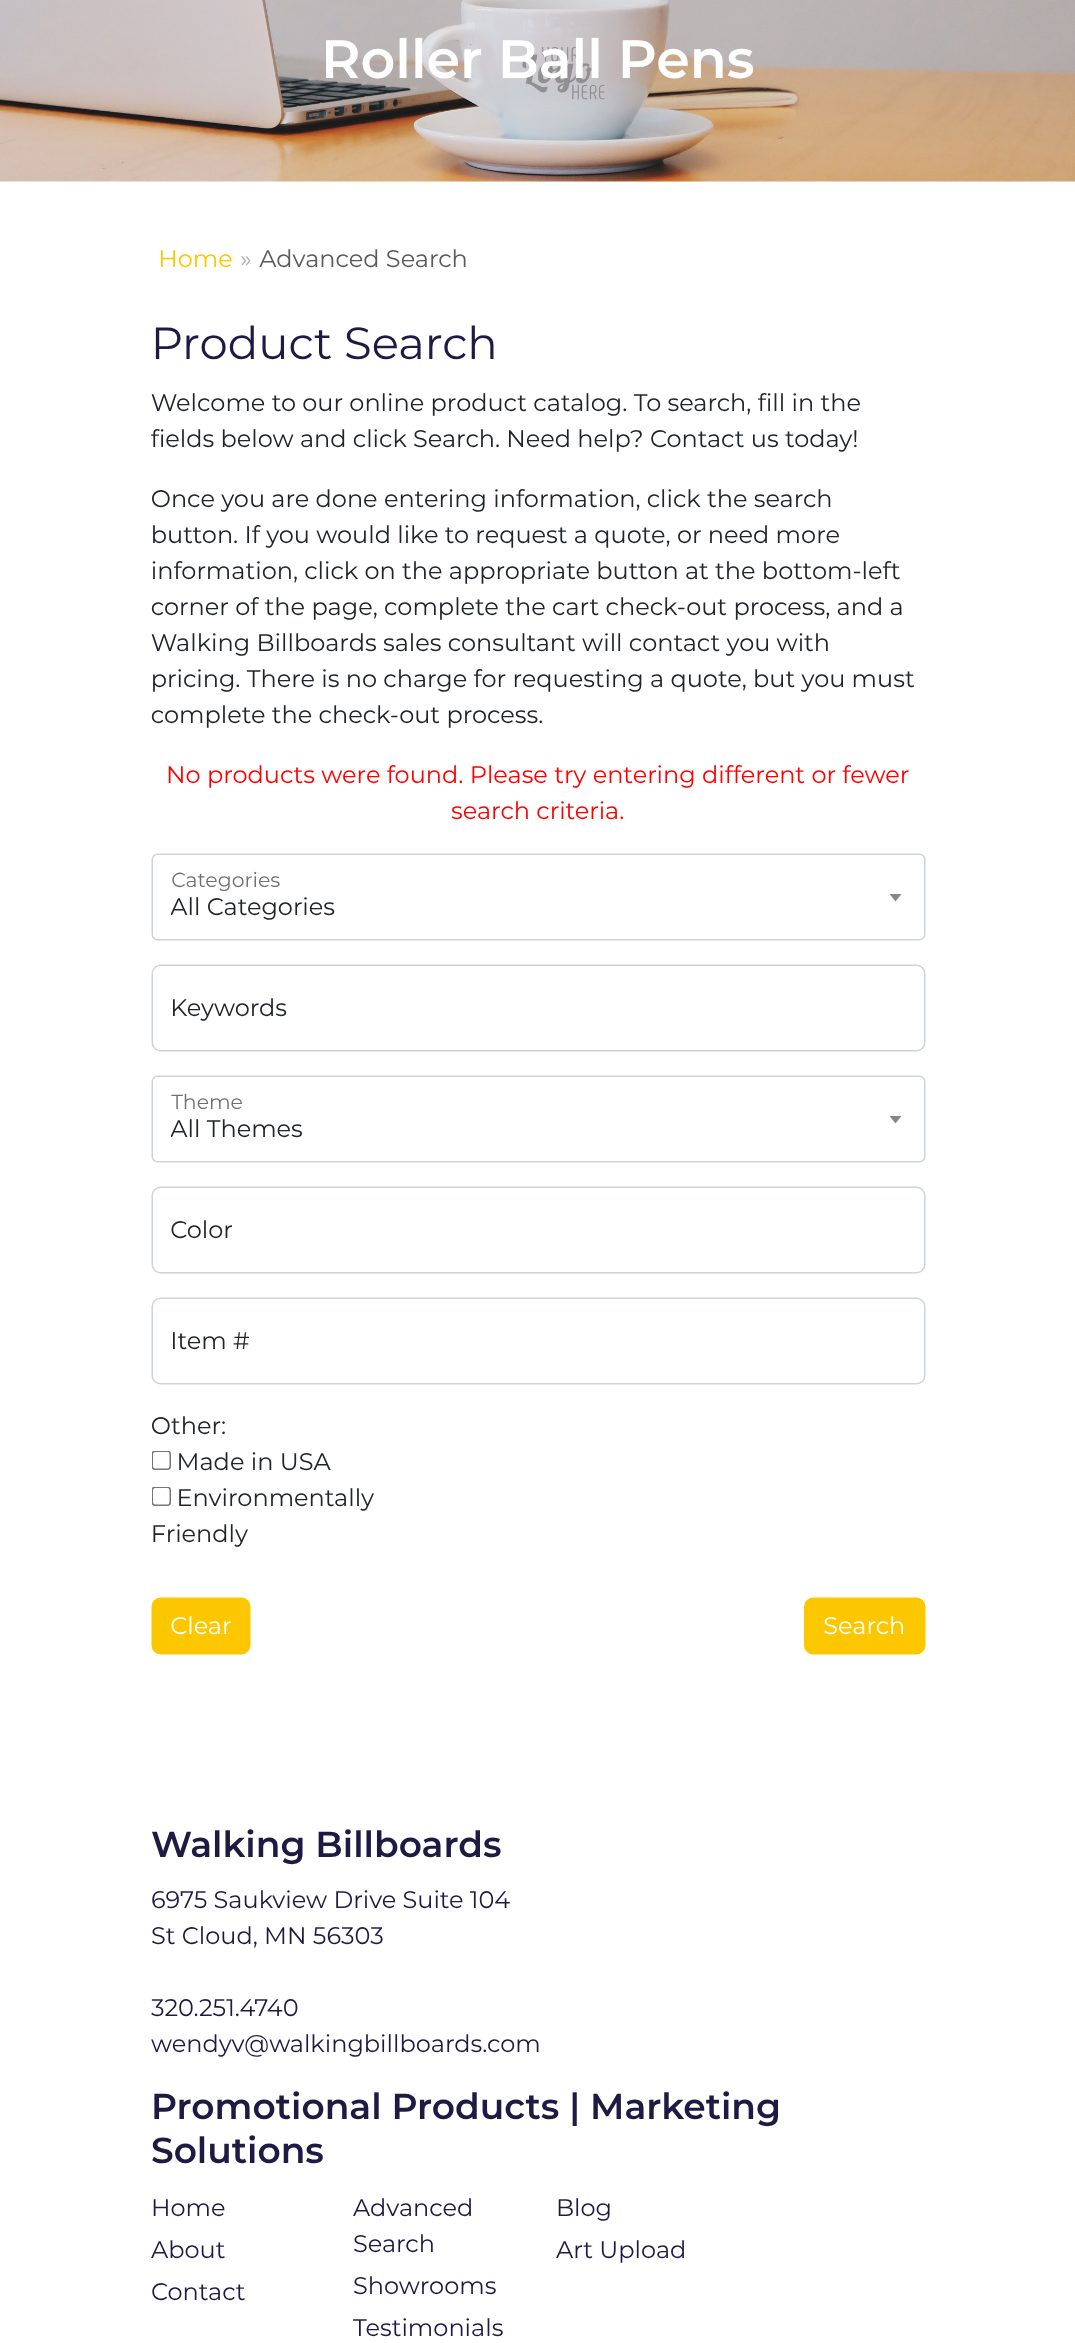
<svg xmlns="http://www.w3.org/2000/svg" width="1075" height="2343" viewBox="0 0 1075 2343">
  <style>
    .t1 { font: 100 54px Montserrat; fill: #fff; }
    .t2 { font: 100 36px Montserrat; fill: #1e1a44; }
    .t3 { font: 100 24px 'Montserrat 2'; fill: #1e1a44; }
  </style>
  <rect width="100%" height="100%" fill="#fff"/>
  <image x="0" y="0" width="1075" height="182" href="images/1.png"/>
  <text x="321" y="78" class="t1">Roller Ball Pens</text>
  <image x="151" y="249" width="775" height="1406" href="images/2.png"/>
  <text x="151" y="1857" class="t2">Walking Billboards</text>
  <text x="151" y="1908" class="t3">6975 Saukview Drive Suite 104</text>
  <text x="151" y="1944" class="t3">St Cloud, MN 56303</text>
  <text x="151" y="2016" class="t3">320.251.4740</text>
  <text x="151" y="2052" class="t3">wendyv@walkingbillboards.com</text>
  <text x="151" y="2119" class="t2">Promotional Products | Marketing</text>
  <text x="151" y="2163" class="t2">Solutions</text>
  <text x="151" y="2216" class="t3">Home</text>
  <text x="151" y="2258" class="t3">About</text>
  <text x="151" y="2300" class="t3">Contact</text>
  <text x="353" y="2216" class="t3">Advanced</text>
  <text x="353" y="2252" class="t3">Search</text>
  <text x="353" y="2294" class="t3">Showrooms</text>
  <text x="353" y="2336" class="t3">Testimonials</text>
  <text x="556" y="2216" class="t3">Blog</text>
  <text x="556" y="2258" class="t3">Art Upload</text>
</svg>
